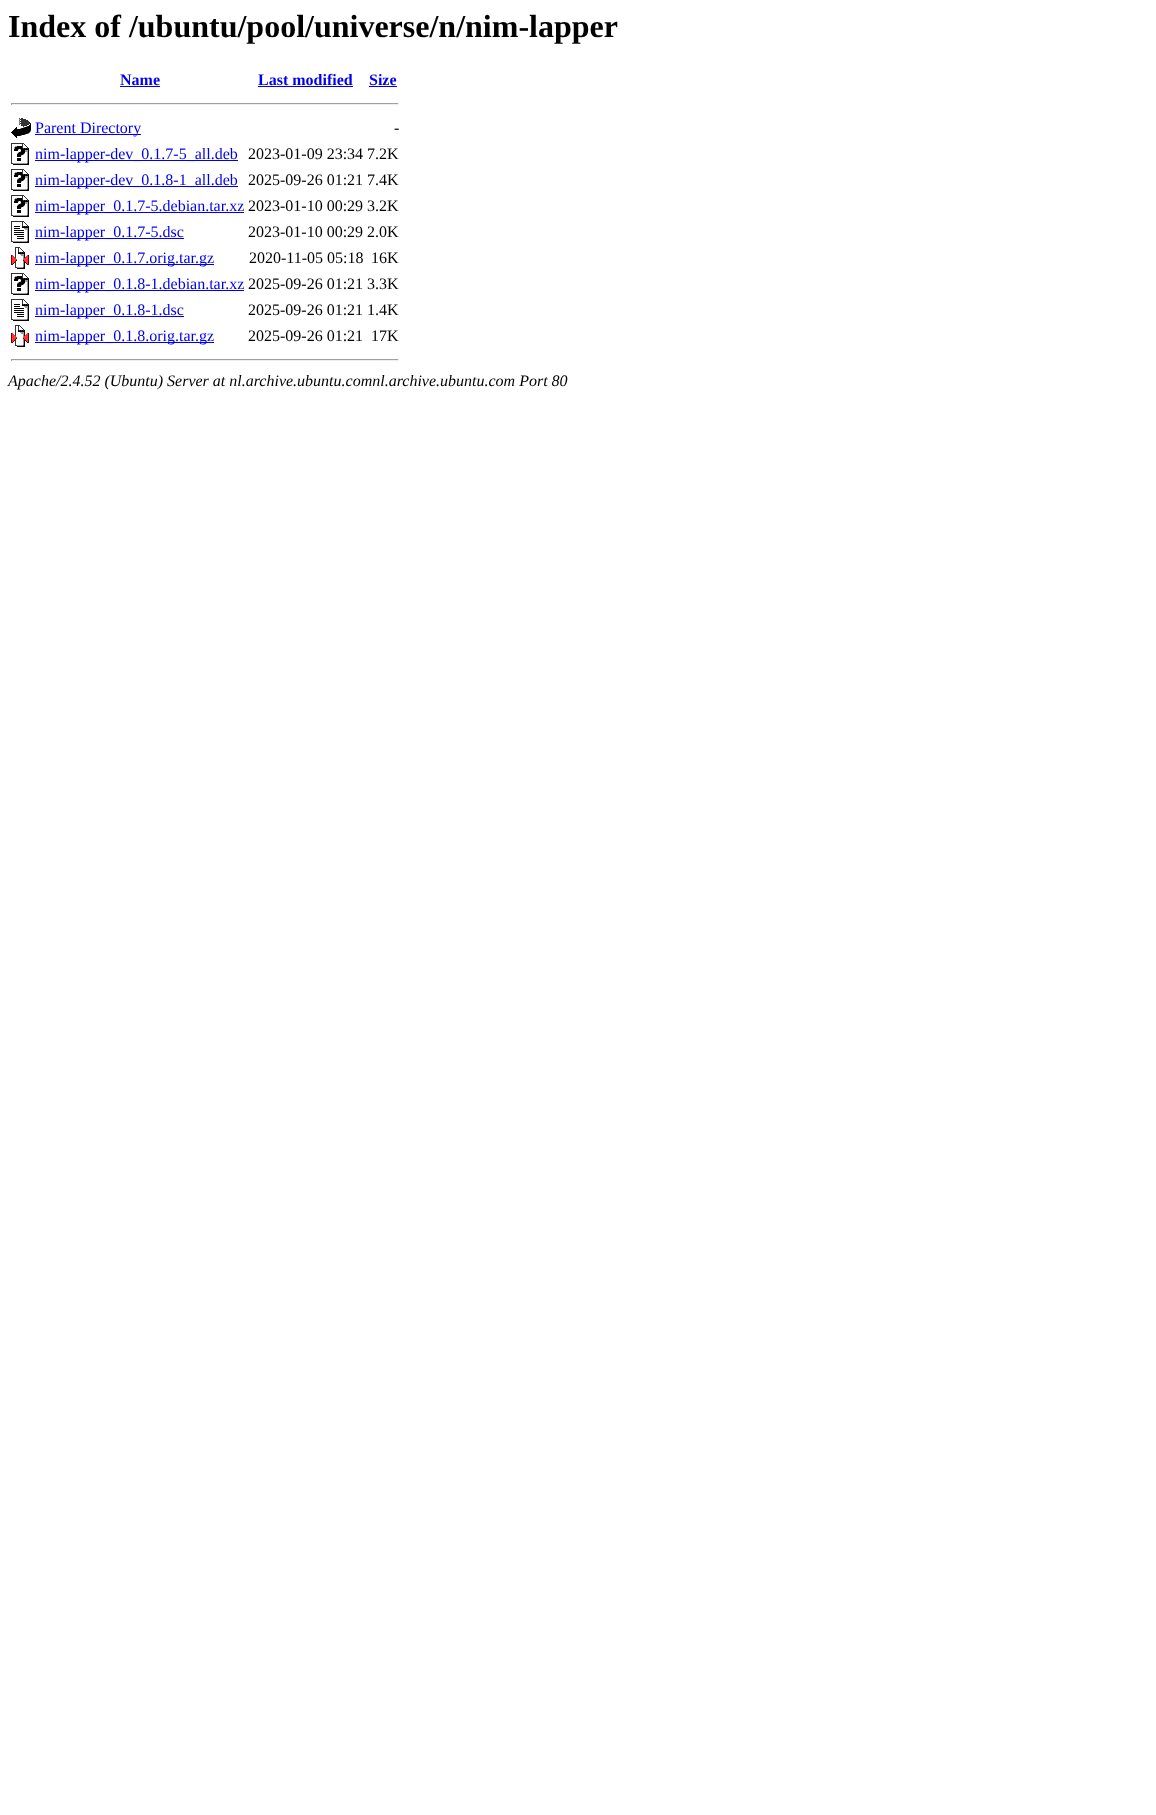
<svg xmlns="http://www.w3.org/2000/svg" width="1156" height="1815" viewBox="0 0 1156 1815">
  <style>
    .t1 { font: bold 32px Liberation Serif; fill: #000; }
    .t2 { font: bold 16px Liberation Serif; fill: #00e; }
    .t3 { font: 16px Liberation Serif; fill: #00e; }
    .t4 { font: 16px Liberation Serif; fill: #000; }
    .t5 { font: italic 16px Liberation Serif; fill: #000; }
  </style>
  <rect width="100%" height="100%" fill="#fff"/>
  <text x="8" y="37" class="t1">Index of /ubuntu/pool/universe/n/nim-lapper</text>
  <text x="120" y="85" class="t2">Name</text>
  <rect x="120" y="86" width="40" height="1" fill="#00e"/>
  <text x="258" y="85" class="t2">Last modified</text>
  <rect x="258" y="86" width="95" height="1" fill="#00e"/>
  <text x="369" y="85" class="t2">Size</text>
  <rect x="369" y="86" width="28" height="1" fill="#00e"/>
  <rect x="11" y="103" width="388" height="1" fill="#9f9f9f"/>
  <rect x="398" y="103" width="1" height="2" fill="#eee"/>
  <rect x="11" y="104" width="388" height="1" fill="#eee"/>
  <rect x="11" y="103" width="1" height="2" fill="#9f9f9f"/>
  <image x="11" y="118" width="20" height="20" href="images/1.png"/>
  <rect x="35" y="134" width="106" height="1" fill="#00e"/>
  <text x="35" y="133" class="t3">Parent Directory</text>
  <text x="394" y="133" class="t4">-</text>
  <image x="11" y="143" width="18" height="22" href="images/2.png"/>
  <rect x="35" y="160" width="203" height="1" fill="#00e"/>
  <text x="35" y="159" class="t3">nim-lapper-dev_0.1.7-5_all.deb</text>
  <text x="248" y="159" class="t4">2023-01-09 23:34 7.2K</text>
  <image x="11" y="169" width="18" height="22" href="images/2.png"/>
  <rect x="35" y="186" width="203" height="1" fill="#00e"/>
  <text x="35" y="185" class="t3">nim-lapper-dev_0.1.8-1_all.deb</text>
  <text x="248" y="185" class="t4">2025-09-26 01:21 7.4K</text>
  <image x="11" y="195" width="18" height="22" href="images/2.png"/>
  <rect x="35" y="212" width="209" height="1" fill="#00e"/>
  <text x="35" y="211" class="t3">nim-lapper_0.1.7-5.debian.tar.xz</text>
  <text x="248" y="211" class="t4">2023-01-10 00:29 3.2K</text>
  <image x="11" y="221" width="18" height="22" href="images/3.png"/>
  <rect x="35" y="238" width="149" height="1" fill="#00e"/>
  <text x="35" y="237" class="t3">nim-lapper_0.1.7-5.dsc</text>
  <text x="248" y="237" class="t4">2023-01-10 00:29 2.0K</text>
  <image x="11" y="247" width="18" height="22" href="images/4.png"/>
  <rect x="35" y="264" width="179" height="1" fill="#00e"/>
  <text x="35" y="263" class="t3">nim-lapper_0.1.7.orig.tar.gz</text>
  <text x="249" y="263" class="t4">2020-11-05 05:18</text>
  <text x="371" y="263" class="t4">16K</text>
  <image x="11" y="273" width="18" height="22" href="images/2.png"/>
  <rect x="35" y="290" width="209" height="1" fill="#00e"/>
  <text x="35" y="289" class="t3">nim-lapper_0.1.8-1.debian.tar.xz</text>
  <text x="248" y="289" class="t4">2025-09-26 01:21 3.3K</text>
  <image x="11" y="299" width="18" height="22" href="images/3.png"/>
  <rect x="35" y="316" width="149" height="1" fill="#00e"/>
  <text x="35" y="315" class="t3">nim-lapper_0.1.8-1.dsc</text>
  <text x="248" y="315" class="t4">2025-09-26 01:21 1.4K</text>
  <image x="11" y="325" width="18" height="22" href="images/4.png"/>
  <rect x="35" y="342" width="179" height="1" fill="#00e"/>
  <text x="35" y="341" class="t3">nim-lapper_0.1.8.orig.tar.gz</text>
  <text x="248" y="341" class="t4">2025-09-26 01:21</text>
  <text x="371" y="341" class="t4">17K</text>
  <rect x="11" y="359" width="388" height="1" fill="#9f9f9f"/>
  <rect x="398" y="359" width="1" height="2" fill="#eee"/>
  <rect x="11" y="360" width="388" height="1" fill="#eee"/>
  <rect x="11" y="359" width="1" height="2" fill="#9f9f9f"/>
  <text x="8" y="386" class="t5">Apache/2.4.52 (Ubuntu) Server at nl.archive.ubuntu.comnl.archive.ubuntu.com Port 80</text>
</svg>
